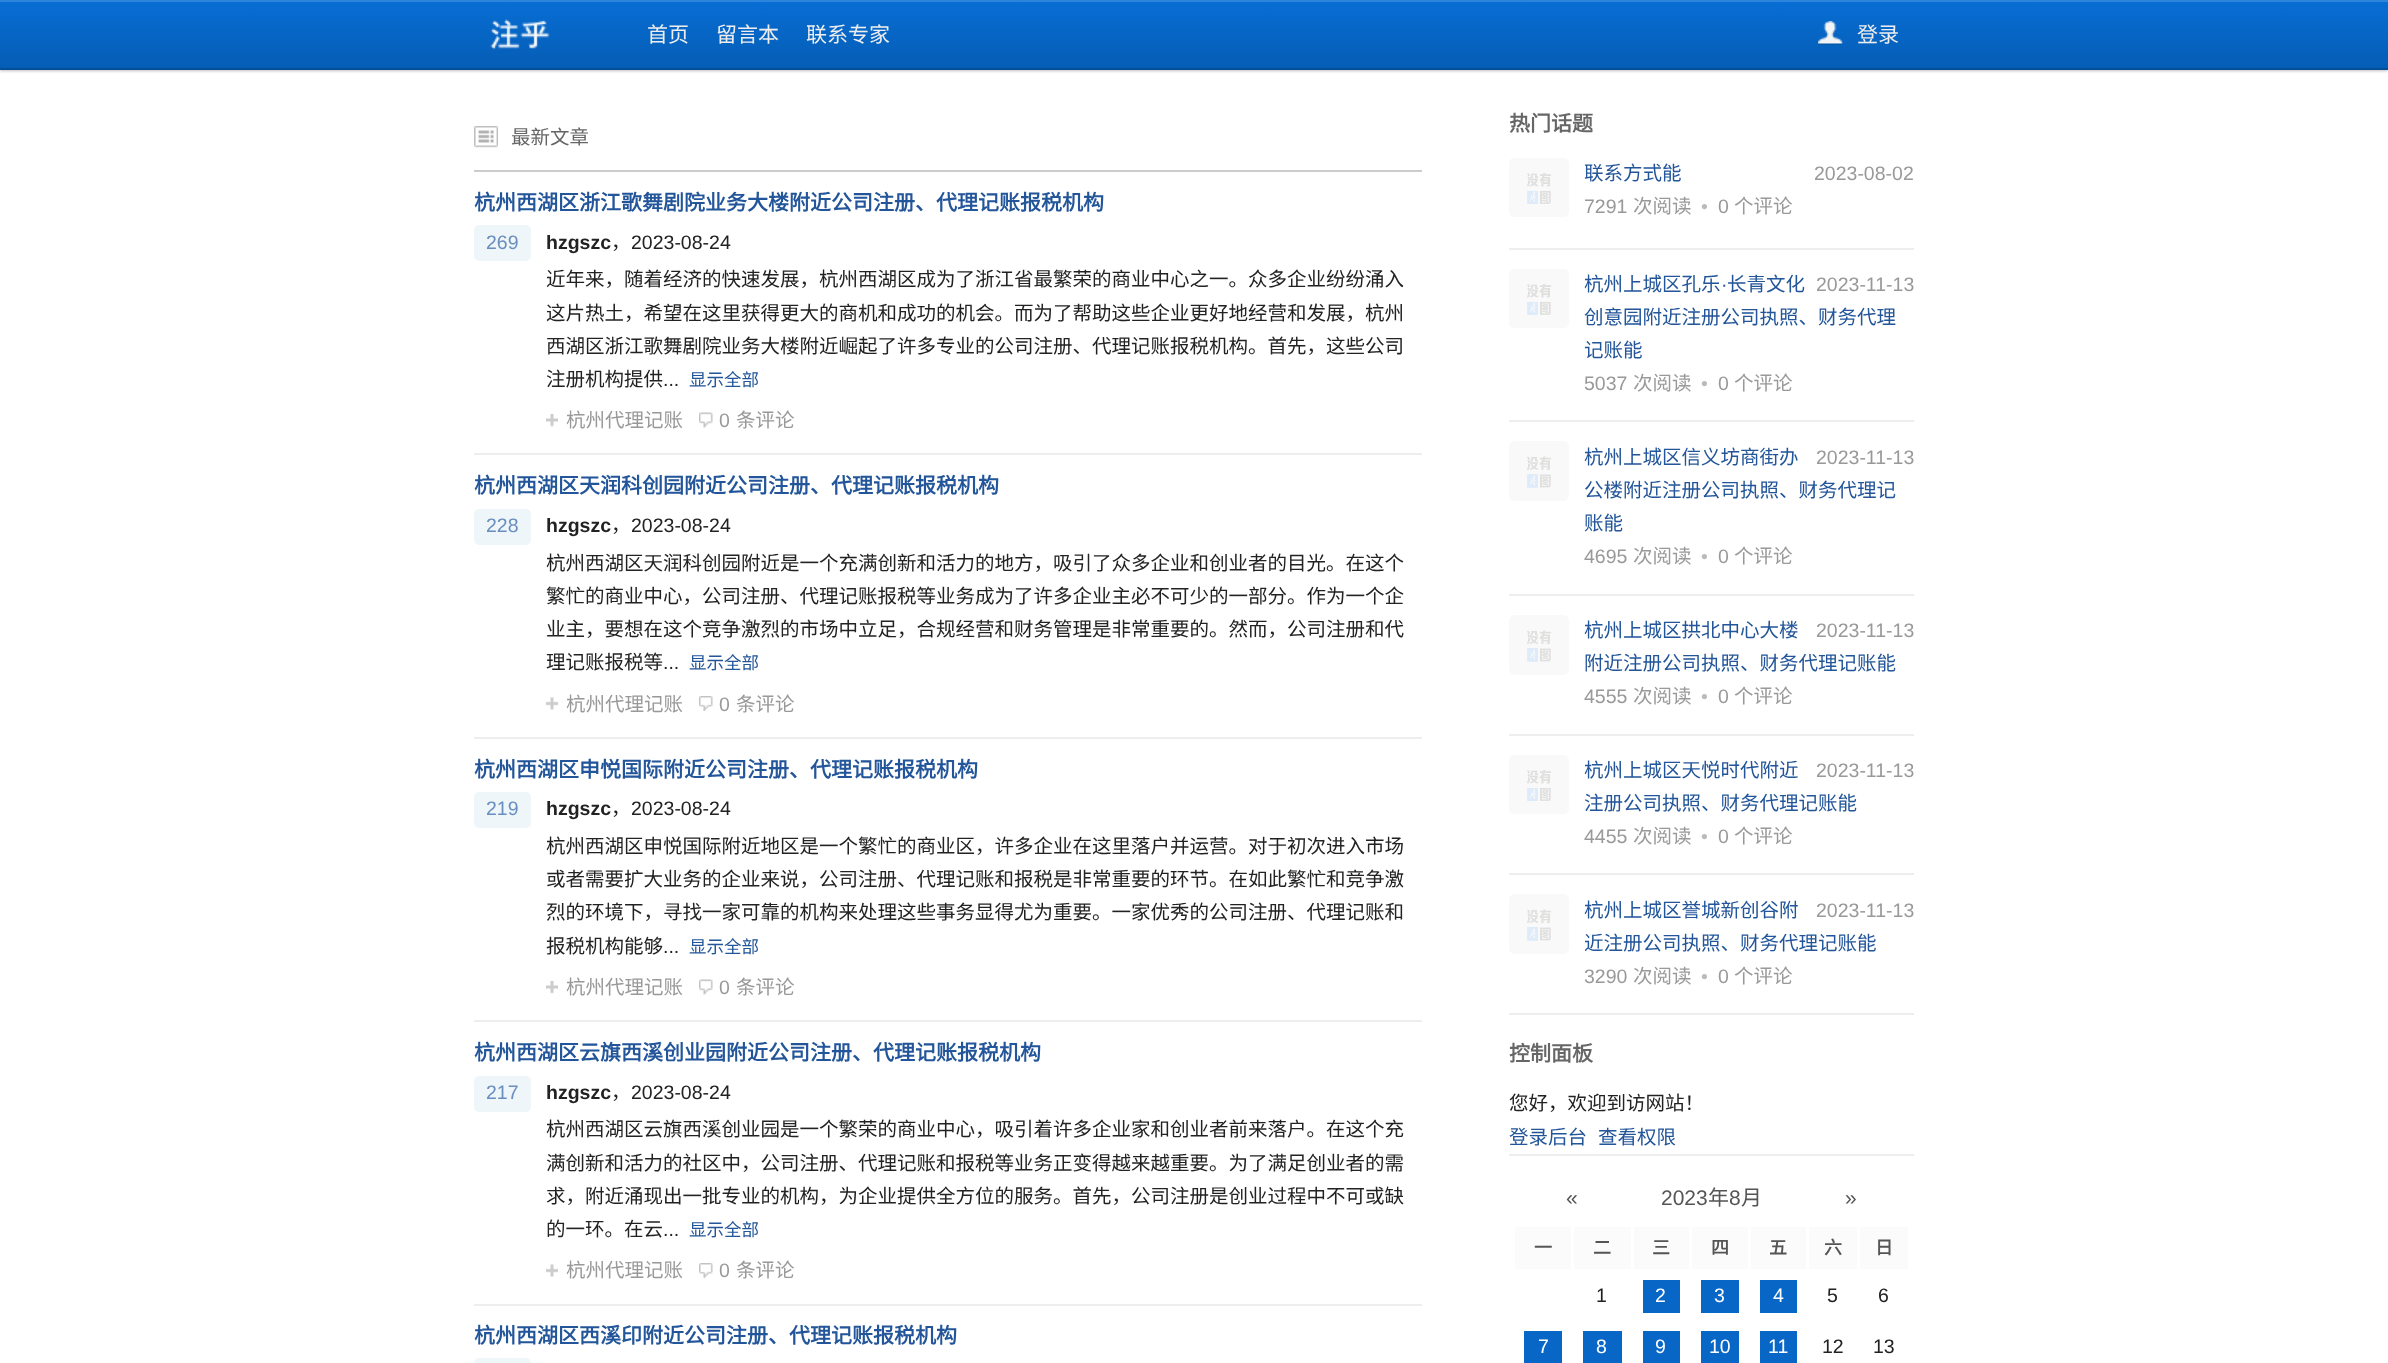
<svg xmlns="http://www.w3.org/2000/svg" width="2388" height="1363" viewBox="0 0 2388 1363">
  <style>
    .t1 { font: 21px Noto Sans CJK SC; fill: #eee; }
    .t2 { font: 19.5px Noto Sans CJK SC; fill: #666; }
    .t3 { font: bold 21px Noto Sans CJK SC; fill: #259; }
    .t4 { font: 19.5px Liberation Sans; fill: #698ebf; }
    .t5 { font: bold 19.5px Liberation Sans; fill: #222; }
    .t6 { font: 19.5px Noto Sans CJK SC; fill: #222; }
    .t7 { font: 19.5px Liberation Sans; fill: #222; }
    .t8 { font: 17.5px Noto Sans CJK SC; fill: #259; }
    .t9 { font: 19.5px Noto Sans CJK SC; fill: #999; }
    .t10 { font: 19.5px Liberation Sans; fill: #999; }
    .t11 { font: bold 21px Noto Sans CJK SC; fill: #666; }
    .t12 { font: 19.5px Noto Sans CJK SC; fill: #259; }
    .t13 { font: 19.5px Liberation Sans; fill: #bbb; }
    .t14 { font: 19.5px Liberation Sans; fill: #259; }
    .t15 { font: 21px Liberation Sans; fill: #555; }
    .t16 { font: 21px Noto Sans CJK SC; fill: #555; }
    .t17 { font: bold 18px Noto Sans CJK SC; fill: #555; }
    .t18 { font: 19.5px Liberation Sans; fill: #fff; }
  </style>
  <defs>
    <linearGradient id="g1" gradientUnits="userSpaceOnUse" x1="1194" y1="0" x2="1194" y2="68"><stop offset="0" stop-color="#086ed5"/><stop offset="1" stop-color="#055db5"/></linearGradient>
  </defs>
  <rect width="100%" height="100%" fill="#fff"/>
  <rect x="0" y="2" width="2388" height="69" fill="#00000040" filter="blur(1.5px)"/>
  <rect x="0" y="2" width="2388" height="66" fill="url(#g1)"/>
  <rect x="0" y="0" width="2388" height="2" fill="#2d84db"/>
  <rect x="0" y="68" width="2388" height="2" fill="#044e97"/>
  <image x="490" y="19" width="60" height="31" href="images/1.png"/>
  <text x="647" y="42" class="t1">首页</text>
  <text x="716" y="42" class="t1">留言本</text>
  <text x="806" y="42" class="t1">联系专家</text>
  <image x="1818" y="21" width="25" height="24" href="images/2.png"/>
  <text x="1857" y="42" class="t1">登录</text>
  <rect x="474" y="170" width="948" height="2" fill="#ccc"/>
  <image x="474" y="126" width="24" height="22" href="images/3.png"/>
  <text x="511" y="144" class="t2">最新文章</text>
  <text x="474" y="210" class="t3">杭州西湖区浙江歌舞剧院业务大楼附近公司注册、代理记账报税机构</text>
  <rect x="474" y="225" width="57" height="36" rx="5" fill="#eff6fa"/>
  <text x="486" y="249" class="t4">269</text>
  <text x="546" y="249" class="t5">hzgszc</text>
  <text x="611" y="249" class="t6">，</text>
  <text x="631" y="249" class="t7">2023-08-24</text>
  <text x="546" y="286" class="t6">近年来，随着经济的快速发展，杭州西湖区成为了浙江省最繁荣的商业中心之一。众多企业纷纷涌入</text>
  <text x="546" y="320" class="t6">这片热土，希望在这里获得更大的商机和成功的机会。而为了帮助这些企业更好地经营和发展，杭州</text>
  <text x="546" y="353" class="t6">西湖区浙江歌舞剧院业务大楼附近崛起了许多专业的公司注册、代理记账报税机构。首先，这些公司</text>
  <text x="546" y="386" class="t6">注册机构提供</text>
  <text x="663" y="386" class="t7">...</text>
  <text x="689" y="386" class="t8">显示全部</text>
  <image x="546" y="414" width="12" height="13" href="images/4.png"/>
  <text x="566" y="427" class="t9">杭州代理记账</text>
  <image x="699" y="412" width="14" height="16" href="images/5.png"/>
  <text x="719" y="427" class="t10">0</text>
  <text x="736" y="427" class="t9">条评论</text>
  <rect x="474" y="453" width="948" height="2" fill="#eee"/>
  <text x="474" y="493" class="t3">杭州西湖区天润科创园附近公司注册、代理记账报税机构</text>
  <rect x="474" y="509" width="57" height="36" rx="5" fill="#eff6fa"/>
  <text x="486" y="532" class="t4">228</text>
  <text x="546" y="532" class="t5">hzgszc</text>
  <text x="611" y="532" class="t6">，</text>
  <text x="631" y="532" class="t7">2023-08-24</text>
  <text x="546" y="570" class="t6">杭州西湖区天润科创园附近是一个充满创新和活力的地方，吸引了众多企业和创业者的目光。在这个</text>
  <text x="546" y="603" class="t6">繁忙的商业中心，公司注册、代理记账报税等业务成为了许多企业主必不可少的一部分。作为一个企</text>
  <text x="546" y="636" class="t6">业主，要想在这个竞争激烈的市场中立足，合规经营和财务管理是非常重要的。然而，公司注册和代</text>
  <text x="546" y="669" class="t6">理记账报税等</text>
  <text x="663" y="669" class="t7">...</text>
  <text x="689" y="669" class="t8">显示全部</text>
  <image x="546" y="697" width="12" height="13" href="images/6.png"/>
  <text x="566" y="711" class="t9">杭州代理记账</text>
  <image x="699" y="696" width="14" height="15" href="images/7.png"/>
  <text x="719" y="711" class="t10">0</text>
  <text x="736" y="711" class="t9">条评论</text>
  <rect x="474" y="737" width="948" height="2" fill="#eee"/>
  <text x="474" y="777" class="t3">杭州西湖区申悦国际附近公司注册、代理记账报税机构</text>
  <rect x="474" y="792" width="57" height="36" rx="5" fill="#eff6fa"/>
  <text x="486" y="815" class="t4">219</text>
  <text x="546" y="815" class="t5">hzgszc</text>
  <text x="611" y="815" class="t6">，</text>
  <text x="631" y="815" class="t7">2023-08-24</text>
  <text x="546" y="853" class="t6">杭州西湖区申悦国际附近地区是一个繁忙的商业区，许多企业在这里落户并运营。对于初次进入市场</text>
  <text x="546" y="886" class="t6">或者需要扩大业务的企业来说，公司注册、代理记账和报税是非常重要的环节。在如此繁忙和竞争激</text>
  <text x="546" y="919" class="t6">烈的环境下，寻找一家可靠的机构来处理这些事务显得尤为重要。一家优秀的公司注册、代理记账和</text>
  <text x="546" y="953" class="t6">报税机构能够</text>
  <text x="663" y="953" class="t7">...</text>
  <text x="689" y="953" class="t8">显示全部</text>
  <image x="546" y="981" width="12" height="13" href="images/4.png"/>
  <text x="566" y="994" class="t9">杭州代理记账</text>
  <image x="699" y="979" width="14" height="16" href="images/5.png"/>
  <text x="719" y="994" class="t10">0</text>
  <text x="736" y="994" class="t9">条评论</text>
  <rect x="474" y="1020" width="948" height="2" fill="#eee"/>
  <text x="474" y="1060" class="t3">杭州西湖区云旗西溪创业园附近公司注册、代理记账报税机构</text>
  <rect x="474" y="1076" width="57" height="36" rx="5" fill="#eff6fa"/>
  <text x="486" y="1099" class="t4">217</text>
  <text x="546" y="1099" class="t5">hzgszc</text>
  <text x="611" y="1099" class="t6">，</text>
  <text x="631" y="1099" class="t7">2023-08-24</text>
  <text x="546" y="1136" class="t6">杭州西湖区云旗西溪创业园是一个繁荣的商业中心，吸引着许多企业家和创业者前来落户。在这个充</text>
  <text x="546" y="1170" class="t6">满创新和活力的社区中，公司注册、代理记账和报税等业务正变得越来越重要。为了满足创业者的需</text>
  <text x="546" y="1203" class="t6">求，附近涌现出一批专业的机构，为企业提供全方位的服务。首先，公司注册是创业过程中不可或缺</text>
  <text x="546" y="1236" class="t6">的一环。在云</text>
  <text x="663" y="1236" class="t7">...</text>
  <text x="689" y="1236" class="t8">显示全部</text>
  <image x="546" y="1264" width="12" height="13" href="images/6.png"/>
  <text x="566" y="1277" class="t9">杭州代理记账</text>
  <image x="699" y="1263" width="14" height="15" href="images/7.png"/>
  <text x="719" y="1277" class="t10">0</text>
  <text x="736" y="1277" class="t9">条评论</text>
  <rect x="474" y="1304" width="948" height="2" fill="#eee"/>
  <text x="474" y="1343" class="t3">杭州西湖区西溪印附近公司注册、代理记账报税机构</text>
  <rect x="474" y="1358" width="57" height="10" rx="5" fill="#eff6fa"/>
  <text x="1509" y="131" class="t11">热门话题</text>
  <image x="1509" y="158" width="60" height="59" href="images/8.png"/>
  <text x="1584" y="180" class="t12">联系方式能</text>
  <text x="1814" y="180" class="t10">2023-08-02</text>
  <text x="1584" y="213" class="t10">7291</text>
  <text x="1633" y="213" class="t9">次阅读</text>
  <text x="1701" y="213" class="t13">•</text>
  <text x="1718" y="213" class="t10">0</text>
  <text x="1734" y="213" class="t9">个评论</text>
  <rect x="1509" y="248" width="405" height="2" fill="#eee"/>
  <image x="1509" y="269" width="60" height="59" href="images/8.png"/>
  <text x="1584" y="291" class="t12">杭州上城区孔乐</text>
  <text x="1721" y="291" class="t14">·</text>
  <text x="1727" y="291" class="t12">长青文化</text>
  <text x="1816" y="291" class="t10">2023-11-13</text>
  <text x="1584" y="324" class="t12">创意园附近注册公司执照、财务代理</text>
  <text x="1584" y="357" class="t12">记账能</text>
  <text x="1584" y="390" class="t10">5037</text>
  <text x="1633" y="390" class="t9">次阅读</text>
  <text x="1701" y="390" class="t13">•</text>
  <text x="1718" y="390" class="t10">0</text>
  <text x="1734" y="390" class="t9">个评论</text>
  <rect x="1509" y="420" width="405" height="2" fill="#eee"/>
  <image x="1509" y="441" width="60" height="60" href="images/9.png"/>
  <text x="1584" y="464" class="t12">杭州上城区信义坊商街办</text>
  <text x="1816" y="464" class="t10">2023-11-13</text>
  <text x="1584" y="497" class="t12">公楼附近注册公司执照、财务代理记</text>
  <text x="1584" y="530" class="t12">账能</text>
  <text x="1584" y="563" class="t10">4695</text>
  <text x="1633" y="563" class="t9">次阅读</text>
  <text x="1701" y="563" class="t13">•</text>
  <text x="1718" y="563" class="t10">0</text>
  <text x="1734" y="563" class="t9">个评论</text>
  <rect x="1509" y="594" width="405" height="2" fill="#eee"/>
  <image x="1509" y="615" width="60" height="60" href="images/9.png"/>
  <text x="1584" y="637" class="t12">杭州上城区拱北中心大楼</text>
  <text x="1816" y="637" class="t10">2023-11-13</text>
  <text x="1584" y="670" class="t12">附近注册公司执照、财务代理记账能</text>
  <text x="1584" y="703" class="t10">4555</text>
  <text x="1633" y="703" class="t9">次阅读</text>
  <text x="1701" y="703" class="t13">•</text>
  <text x="1718" y="703" class="t10">0</text>
  <text x="1734" y="703" class="t9">个评论</text>
  <rect x="1509" y="734" width="405" height="2" fill="#eee"/>
  <image x="1509" y="755" width="60" height="59" href="images/8.png"/>
  <text x="1584" y="777" class="t12">杭州上城区天悦时代附近</text>
  <text x="1816" y="777" class="t10">2023-11-13</text>
  <text x="1584" y="810" class="t12">注册公司执照、财务代理记账能</text>
  <text x="1584" y="843" class="t10">4455</text>
  <text x="1633" y="843" class="t9">次阅读</text>
  <text x="1701" y="843" class="t13">•</text>
  <text x="1718" y="843" class="t10">0</text>
  <text x="1734" y="843" class="t9">个评论</text>
  <rect x="1509" y="873" width="405" height="2" fill="#eee"/>
  <image x="1509" y="894" width="60" height="60" href="images/9.png"/>
  <text x="1584" y="917" class="t12">杭州上城区誉城新创谷附</text>
  <text x="1816" y="917" class="t10">2023-11-13</text>
  <text x="1584" y="950" class="t12">近注册公司执照、财务代理记账能</text>
  <text x="1584" y="983" class="t10">3290</text>
  <text x="1633" y="983" class="t9">次阅读</text>
  <text x="1701" y="983" class="t13">•</text>
  <text x="1718" y="983" class="t10">0</text>
  <text x="1734" y="983" class="t9">个评论</text>
  <rect x="1509" y="1013" width="405" height="2" fill="#eee"/>
  <text x="1509" y="1061" class="t11">控制面板</text>
  <text x="1509" y="1110" class="t6">您好，欢迎到访网站！</text>
  <text x="1509" y="1144" class="t12">登录后台</text>
  <text x="1598" y="1144" class="t12">查看权限</text>
  <rect x="1509" y="1154" width="405" height="2" fill="#eee"/>
  <text x="1566" y="1205" class="t15">«</text>
  <text x="1661" y="1205" class="t15">2023</text>
  <text x="1708" y="1205" class="t16">年</text>
  <text x="1729" y="1205" class="t15">8</text>
  <text x="1741" y="1205" class="t16">月</text>
  <text x="1845" y="1205" class="t15">»</text>
  <rect x="1515" y="1227" width="56" height="42" fill="#fbfbfb"/>
  <text x="1534" y="1254" class="t17">一</text>
  <rect x="1574" y="1227" width="57" height="42" fill="#fbfbfb"/>
  <text x="1593" y="1254" class="t17">二</text>
  <rect x="1634" y="1227" width="55" height="42" fill="#fbfbfb"/>
  <text x="1652" y="1254" class="t17">三</text>
  <rect x="1692" y="1227" width="56" height="42" fill="#fbfbfb"/>
  <text x="1711" y="1254" class="t17">四</text>
  <rect x="1751" y="1227" width="55" height="42" fill="#fbfbfb"/>
  <text x="1769" y="1254" class="t17">五</text>
  <rect x="1809" y="1227" width="48" height="42" fill="#fbfbfb"/>
  <text x="1824" y="1254" class="t17">六</text>
  <rect x="1860" y="1227" width="48" height="42" fill="#fbfbfb"/>
  <text x="1875" y="1254" class="t17">日</text>
  <text x="1596" y="1302" class="t7">1</text>
  <rect x="1643" y="1280" width="37" height="33" fill="#0766c6"/>
  <text x="1655" y="1302" class="t18">2</text>
  <rect x="1701" y="1280" width="38" height="33" fill="#0766c6"/>
  <text x="1714" y="1302" class="t18">3</text>
  <rect x="1760" y="1280" width="37" height="33" fill="#0766c6"/>
  <text x="1773" y="1302" class="t18">4</text>
  <text x="1827" y="1302" class="t7">5</text>
  <text x="1878" y="1302" class="t7">6</text>
  <rect x="1524" y="1331" width="38" height="32" fill="#0766c6"/>
  <text x="1538" y="1353" class="t18">7</text>
  <rect x="1583" y="1331" width="39" height="32" fill="#0766c6"/>
  <text x="1596" y="1353" class="t18">8</text>
  <rect x="1643" y="1331" width="37" height="32" fill="#0766c6"/>
  <text x="1655" y="1353" class="t18">9</text>
  <rect x="1701" y="1331" width="38" height="32" fill="#0766c6"/>
  <text x="1709" y="1353" class="t18">10</text>
  <rect x="1760" y="1331" width="37" height="32" fill="#0766c6"/>
  <text x="1768" y="1353" class="t18">11</text>
  <text x="1822" y="1353" class="t7">12</text>
  <text x="1873" y="1353" class="t7">13</text>
</svg>
